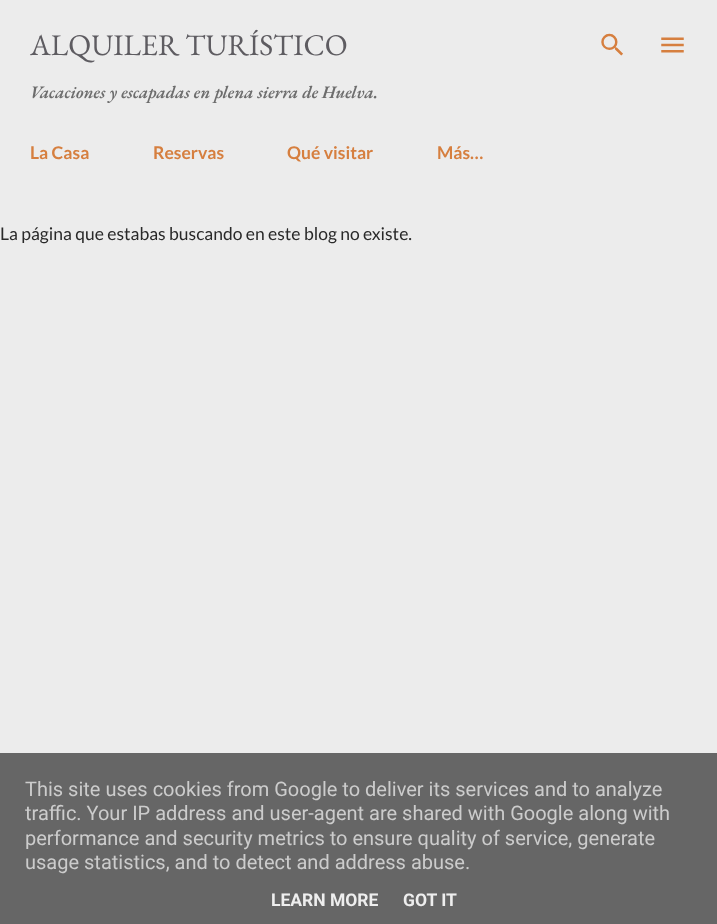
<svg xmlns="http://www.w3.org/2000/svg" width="717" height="924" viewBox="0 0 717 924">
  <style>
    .t1 { font: 30px EB Garamond; fill: #5e5c61; }
    .t2 { font: italic 600 17.5px EB Garamond; fill: #6d6d6d; }
    .t3 { font: bold 17.5px Lato; fill: #d67f3f; }
    .t4 { font: 17.5px Lato; fill: #292929; }
    .t5 { font: 20px Roboto; fill: #ccc; }
    .t6 { font: bold 17.5px Roboto; fill: #eee; }
  </style>
  <rect width="100%" height="100%" fill="#ececec"/>
  <text x="30" y="55" class="t1">ALQUILER TURÍSTICO</text>
  <text x="30" y="98" class="t2">Vacaciones y escapadas en plena sierra de Huelva.</text>
  <image x="601" y="33" width="22" height="23" href="images/1.png"/>
  <image x="661" y="37" width="23" height="16" href="images/2.png"/>
  <text x="30" y="159" class="t3">La Casa</text>
  <text x="153" y="159" class="t3">Reservas</text>
  <text x="287" y="159" class="t3">Qué visitar</text>
  <text x="437" y="159" class="t3">Más…</text>
  <text x="0" y="240" class="t4">La página que estabas buscando en este blog no existe.</text>
  <rect x="0" y="753" width="717" height="171" fill="#666"/>
  <text x="25" y="796" class="t5">This site uses cookies from Google to deliver its services and to analyze</text>
  <text x="25" y="820" class="t5">traffic. Your IP address and user-agent are shared with Google along with</text>
  <text x="25" y="845" class="t5">performance and security metrics to ensure quality of service, generate</text>
  <text x="25" y="869" class="t5">usage statistics, and to detect and address abuse.</text>
  <text x="271" y="906" class="t6">LEARN MORE</text>
  <text x="403" y="906" class="t6">GOT IT</text>
</svg>
